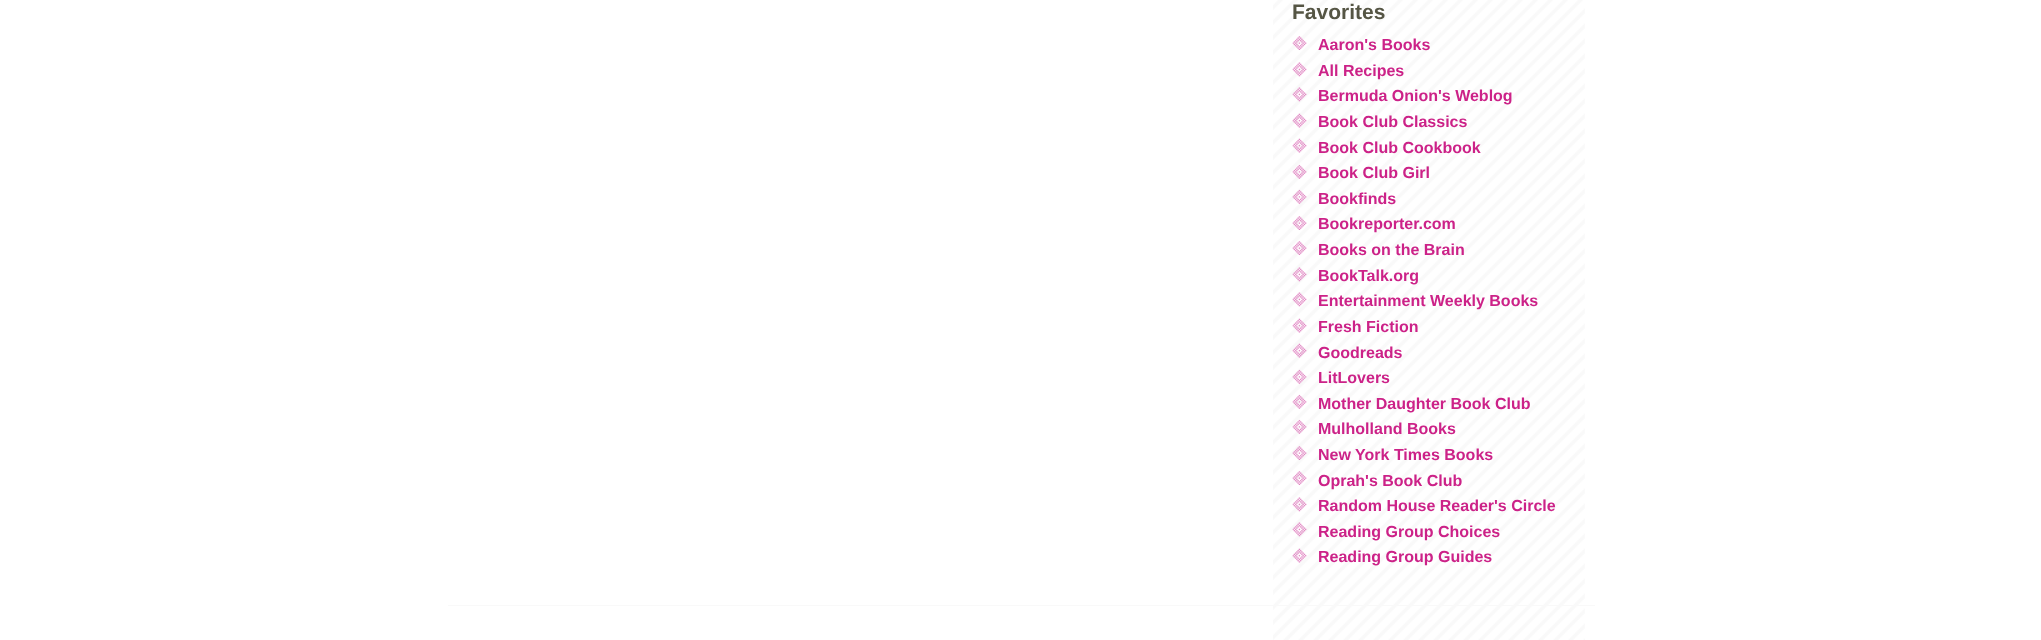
<svg xmlns="http://www.w3.org/2000/svg" width="2041" height="640" viewBox="0 0 2041 640">
  <style>
    .t1 { font: bold 21px Liberation Sans; fill: #554; }
    .t2 { font: bold 16px Liberation Sans; fill: #c28; }
  </style>
  <rect width="100%" height="100%" fill="#fff"/>
  <image x="1273" y="0" width="312" height="640" href="images/1.png"/>
  <text x="1292" y="19" class="t1">Favorites</text>
  <image x="1292" y="36" width="15" height="14" href="images/2.png"/>
  <text x="1318" y="50" class="t2">Aaron's Books</text>
  <image x="1292" y="62" width="15" height="15" href="images/3.png"/>
  <text x="1318" y="76" class="t2">All Recipes</text>
  <image x="1292" y="87" width="15" height="15" href="images/4.png"/>
  <text x="1318" y="101" class="t2">Bermuda Onion's Weblog</text>
  <image x="1292" y="113" width="15" height="15" href="images/5.png"/>
  <text x="1318" y="127" class="t2">Book Club Classics</text>
  <image x="1292" y="138" width="15" height="15" href="images/6.png"/>
  <text x="1318" y="153" class="t2">Book Club Cookbook</text>
  <image x="1292" y="164" width="15" height="15" href="images/7.png"/>
  <text x="1318" y="178" class="t2">Book Club Girl</text>
  <image x="1292" y="189" width="15" height="15" href="images/8.png"/>
  <text x="1318" y="204" class="t2">Bookfinds</text>
  <image x="1292" y="216" width="15" height="14" href="images/9.png"/>
  <text x="1318" y="229" class="t2">Bookreporter.com</text>
  <image x="1292" y="241" width="15" height="14" href="images/10.png"/>
  <text x="1318" y="255" class="t2">Books on the Brain</text>
  <image x="1292" y="267" width="15" height="15" href="images/4.png"/>
  <text x="1318" y="281" class="t2">BookTalk.org</text>
  <image x="1292" y="292" width="15" height="15" href="images/11.png"/>
  <text x="1318" y="306" class="t2">Entertainment Weekly Books</text>
  <image x="1292" y="318" width="15" height="15" href="images/6.png"/>
  <text x="1318" y="332" class="t2">Fresh Fiction</text>
  <image x="1292" y="343" width="15" height="15" href="images/12.png"/>
  <text x="1318" y="358" class="t2">Goodreads</text>
  <image x="1292" y="369" width="15" height="15" href="images/8.png"/>
  <text x="1318" y="383" class="t2">LitLovers</text>
  <image x="1292" y="394" width="15" height="15" href="images/13.png"/>
  <text x="1318" y="409" class="t2">Mother Daughter Book Club</text>
  <image x="1292" y="419" width="15" height="15" href="images/7.png"/>
  <text x="1318" y="434" class="t2">Mulholland Books</text>
  <image x="1292" y="446" width="15" height="14" href="images/14.png"/>
  <text x="1318" y="460" class="t2">New York Times Books</text>
  <image x="1292" y="471" width="15" height="14" href="images/9.png"/>
  <text x="1318" y="486" class="t2">Oprah's Book Club</text>
  <image x="1292" y="497" width="15" height="15" href="images/3.png"/>
  <text x="1318" y="511" class="t2">Random House Reader's Circle</text>
  <image x="1292" y="522" width="15" height="15" href="images/4.png"/>
  <text x="1318" y="537" class="t2">Reading Group Choices</text>
  <image x="1292" y="548" width="15" height="15" href="images/5.png"/>
  <text x="1318" y="562" class="t2">Reading Group Guides</text>
  <rect x="448" y="605" width="1147" height="1" fill="#f9f9f9"/>
</svg>
